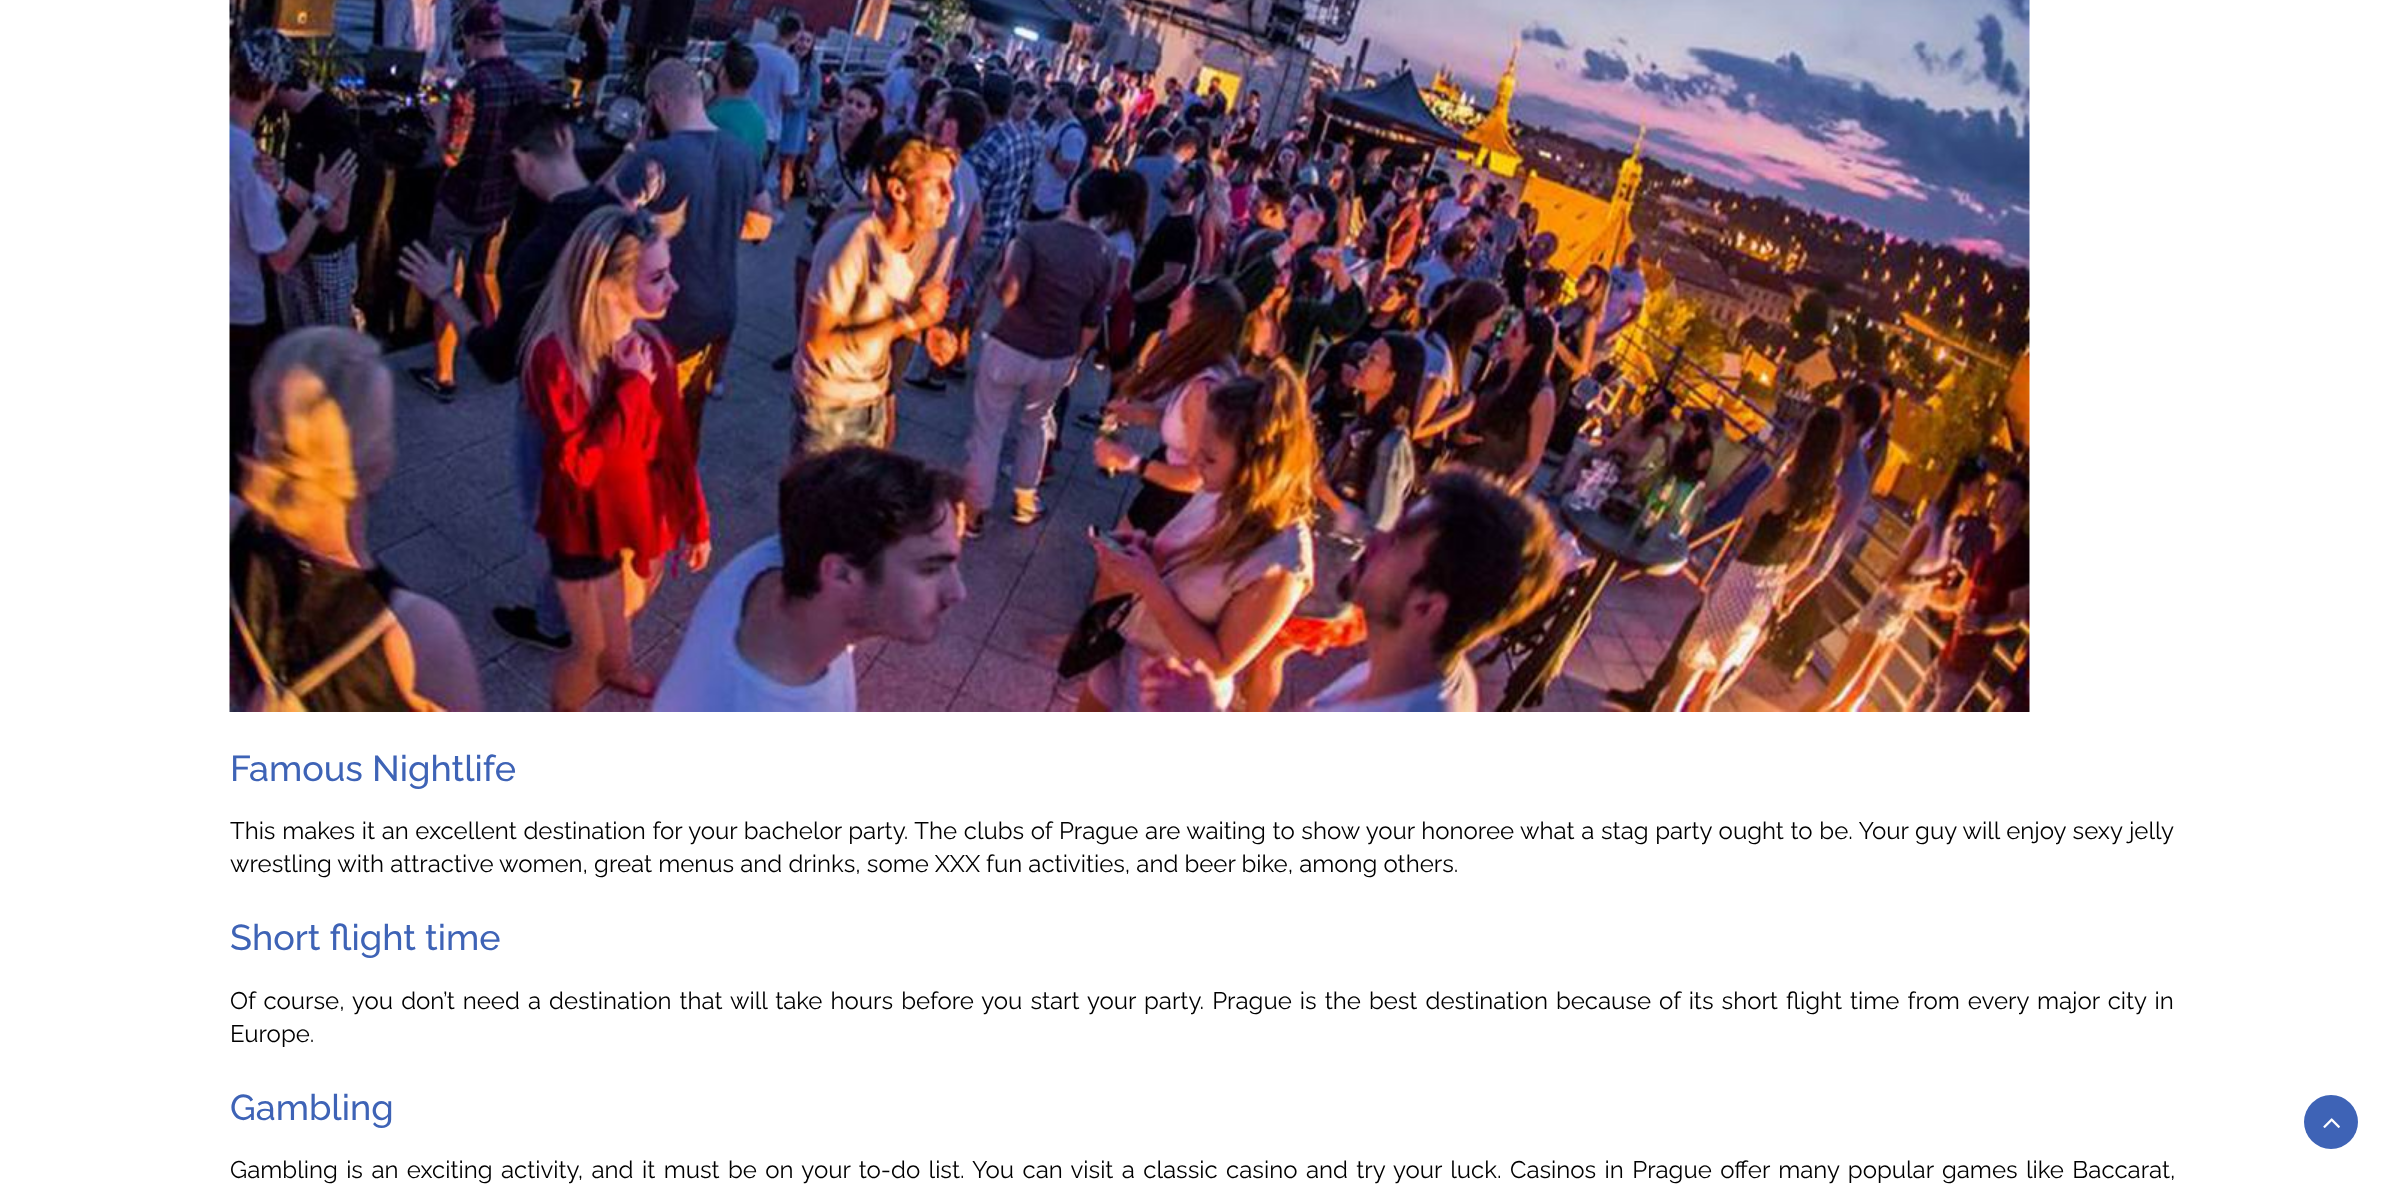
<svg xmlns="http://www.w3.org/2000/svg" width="2402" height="1193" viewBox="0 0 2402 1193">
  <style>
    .t1 { font: 500 36px Raleway; fill: #3e63b6; }
    .t2 { font: 24px Raleway; fill: #000; }
  </style>
  <rect width="100%" height="100%" fill="#fff"/>
  <image x="229" y="0" width="1801" height="712" href="images/1.png"/>
  <text x="230" y="781" class="t1">Famous Nightlife</text>
  <text x="230" y="839" word-spacing="0.55" class="t2">This makes it an excellent destination for your bachelor party. The clubs of Prague are waiting to show your honoree what a stag party ought to be. Your guy will enjoy sexy jelly</text>
  <text x="230" y="872" class="t2">wrestling with attractive women, great menus and drinks, some XXX fun activities, and beer bike, among others.</text>
  <text x="230" y="950" class="t1">Short flight time</text>
  <text x="230" y="1009" word-spacing="1.95" class="t2">Of course, you don’t need a destination that will take hours before you start your party. Prague is the best destination because of its short flight time from every major city in</text>
  <text x="230" y="1042" class="t2">Europe.</text>
  <text x="230" y="1120" class="t1">Gambling</text>
  <text x="230" y="1178" word-spacing="2.3" class="t2">Gambling is an exciting activity, and it must be on your to-do list. You can visit a classic casino and try your luck. Casinos in Prague offer many popular games like Baccarat,</text>
  <circle cx="2331" cy="1122" r="27" fill="#3e63b6"/>
  <image x="2323" y="1118" width="17" height="10" href="images/2.png"/>
</svg>
